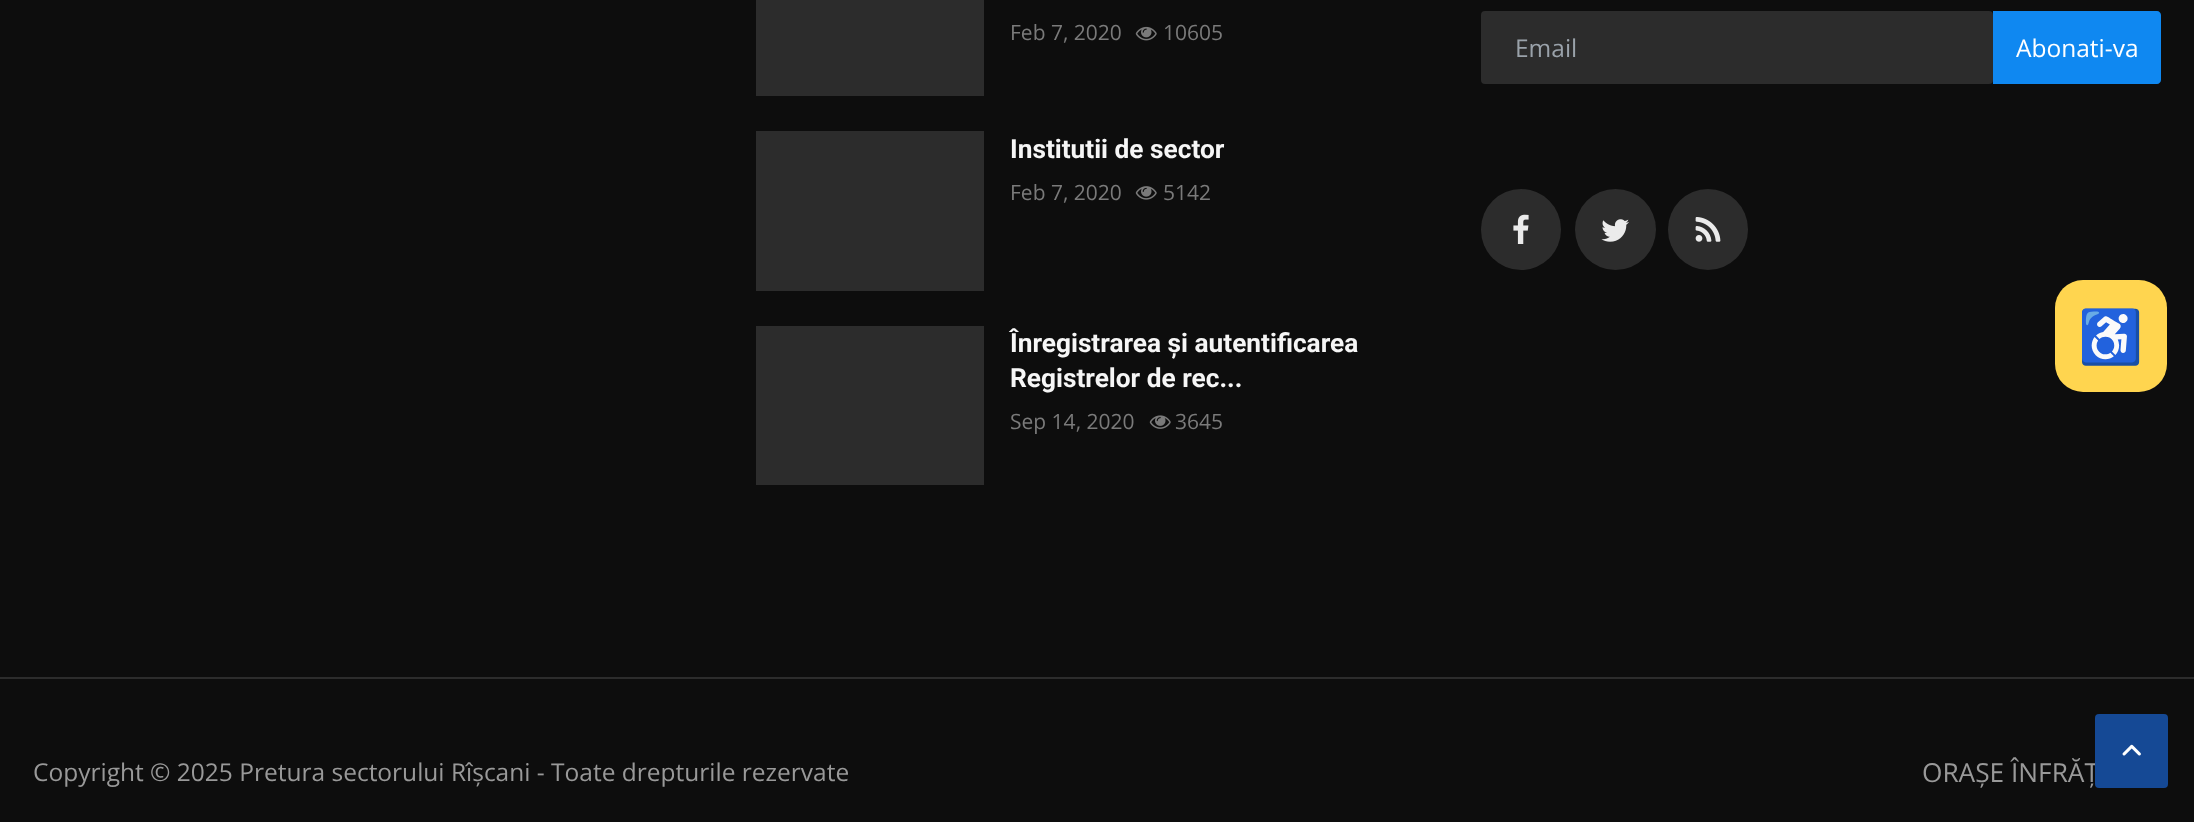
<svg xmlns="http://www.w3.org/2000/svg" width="2194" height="822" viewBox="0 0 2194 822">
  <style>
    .t1 { font: 21px Open Sans; fill: #7a7a7a; }
    .t2 { font: bold 26.25px Roboto; fill: #f6f6f6; }
    .t3 { font: 24.5px Open Sans; fill: #9aa2aa; }
    .t4 { font: 24.5px Open Sans; fill: #fff; }
    .t5 { font: 24.5px Open Sans; fill: #999; }
    .t6 { font: 26.25px Open Sans; fill: #999; }
    .t7 { font: 52px Noto Color Emoji; fill: #222; }
  </style>
  <rect width="100%" height="100%" fill="#0d0d0d"/>
  <rect x="756" y="0" width="228" height="96" fill="#2c2c2c"/>
  <text x="1010" y="40" class="t1">Feb 7, 2020</text>
  <image x="1135" y="26" width="22" height="15" href="images/1.png"/>
  <text x="1163" y="40" class="t1">10605</text>
  <rect x="756" y="131" width="228" height="160" fill="#2c2c2c"/>
  <text x="1010" y="158" class="t2">Institutii de sector</text>
  <text x="1010" y="200" class="t1">Feb 7, 2020</text>
  <image x="1135" y="186" width="22" height="14" href="images/2.png"/>
  <text x="1163" y="200" class="t1">5142</text>
  <rect x="756" y="326" width="228" height="159" fill="#2c2c2c"/>
  <text x="1010" y="352" class="t2">Înregistrarea și autentificarea</text>
  <text x="1010" y="387" class="t2">Registrelor de rec...</text>
  <text x="1010" y="429" class="t1">Sep 14, 2020</text>
  <image x="1149" y="415" width="22" height="14" href="images/3.png"/>
  <text x="1175" y="429" class="t1">3645</text>
  <rect x="1481" y="11" width="512" height="73" rx="4" fill="#2c2c2c"/>
  <text x="1515" y="57" class="t3">Email</text>
  <path d="M1993 11H2157C2159 11 2161 13 2161 15V80C2161 82 2159 84 2157 84H1993Z" fill="#0f88f1"/>
  <text x="2016" y="57" class="t4">Abonati-va</text>
  <rect x="1481" y="189" width="80" height="81" rx="40" fill="#2c2c2c"/>
  <image x="1513" y="214" width="16" height="30" href="images/4.png"/>
  <circle cx="1615.5" cy="229.5" r="40.5" fill="#2c2c2c"/>
  <image x="1601" y="219" width="28" height="23" href="images/5.png"/>
  <rect x="1668" y="189" width="80" height="81" rx="40" fill="#2c2c2c"/>
  <image x="1695" y="217" width="26" height="25" href="images/6.png"/>
  <rect x="0" y="677" width="2194" height="2" fill="#2c2c2c"/>
  <text x="33" y="781" class="t5">Copyright © 2025 Pretura sectorului Rîșcani - Toate drepturile rezervate</text>
  <text x="1922" y="782" class="t6">ORAȘE ÎNFRĂȚ</text>
  <rect x="2055" y="280" width="112" height="112" rx="28" fill="#ffd54f"/>
  <text x="2078" y="355" class="t7">♿</text>
  <rect x="2095" y="714" width="73" height="74" rx="4" fill="#154995"/>
  <image x="2122" y="744" width="19" height="12" href="images/7.png"/>
</svg>
